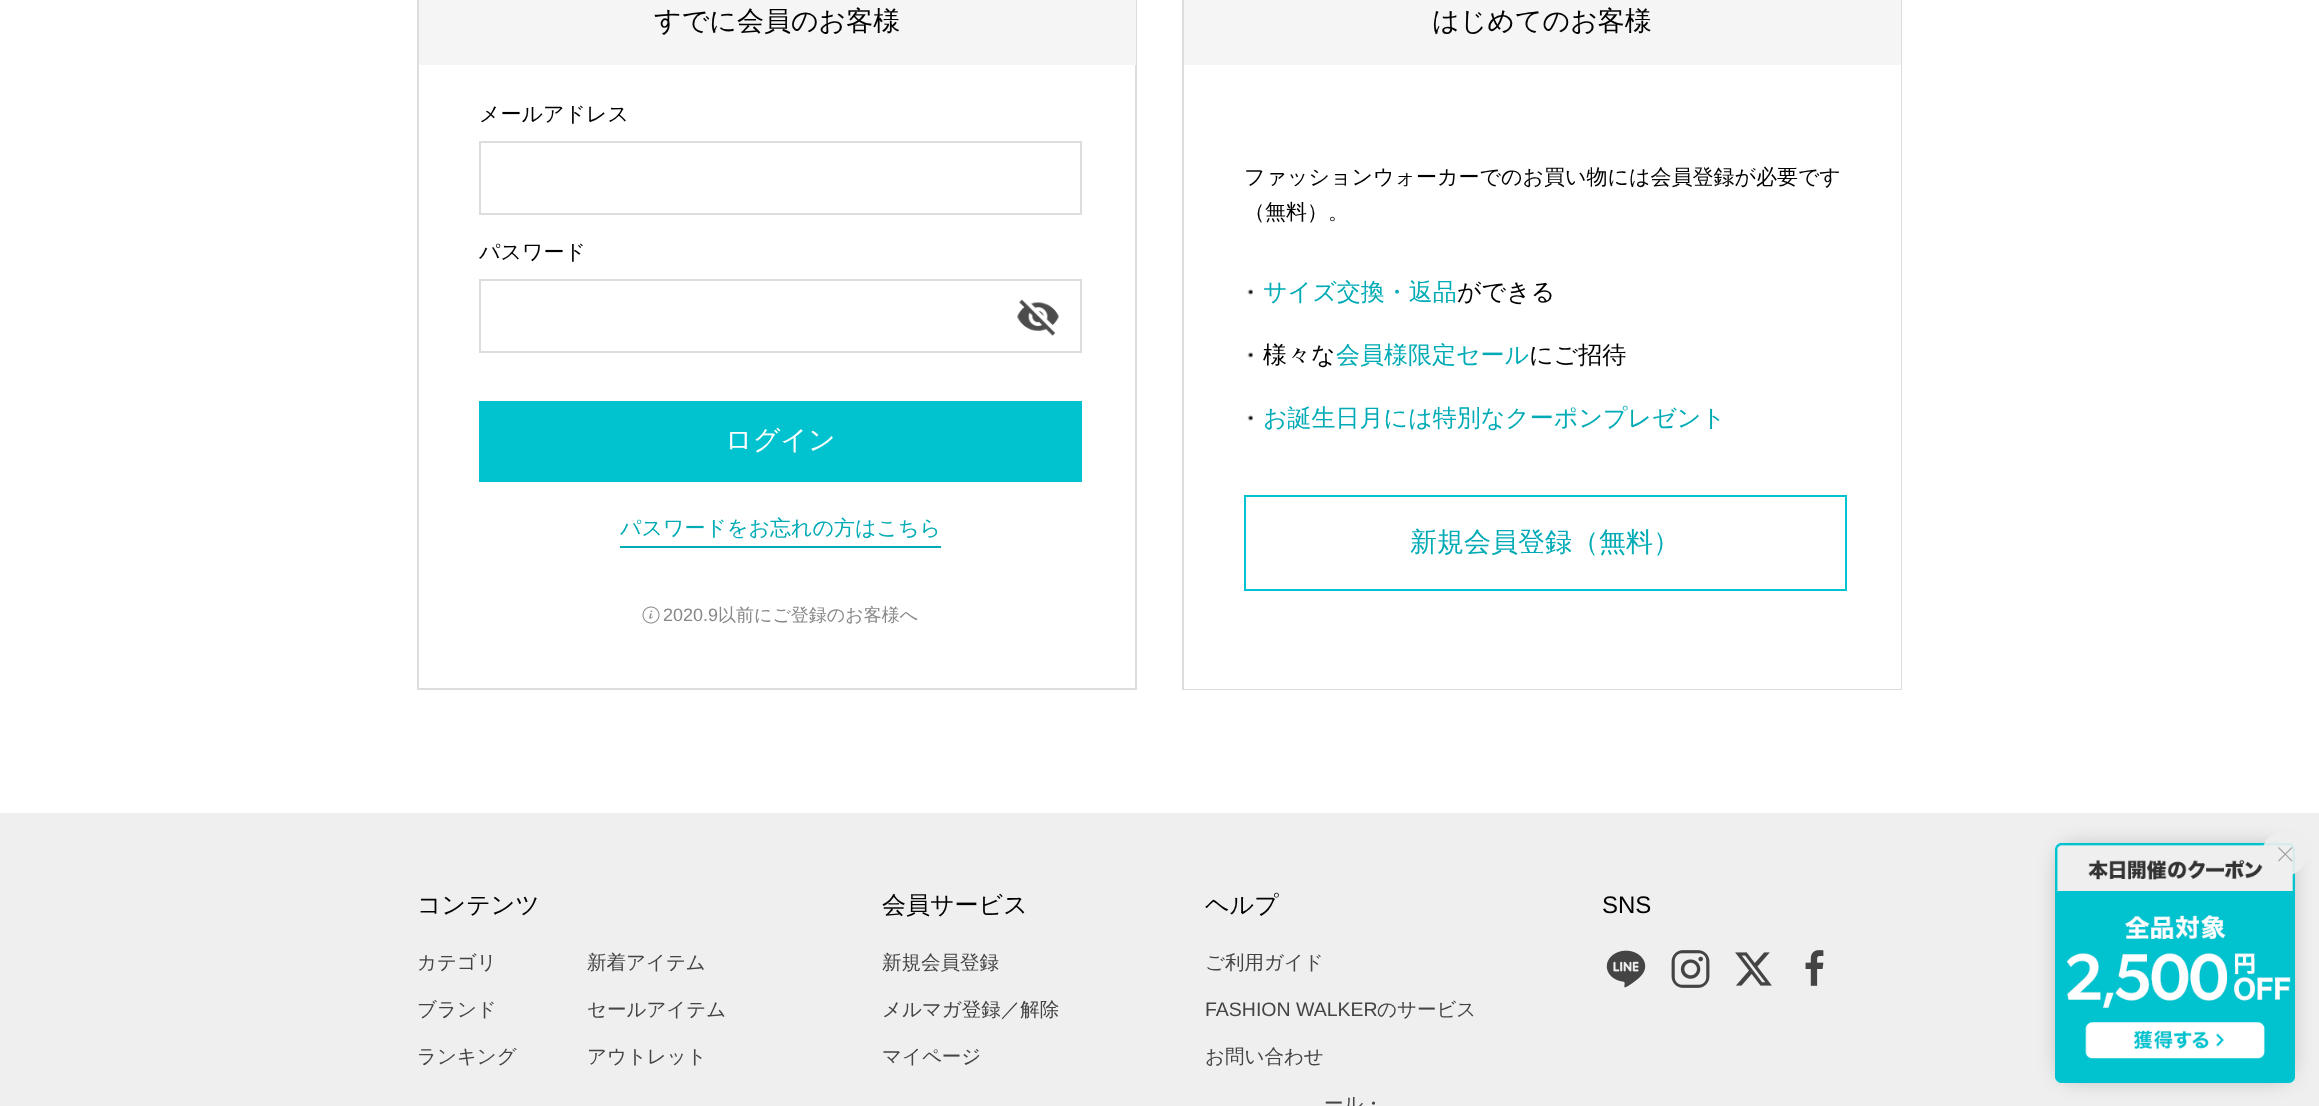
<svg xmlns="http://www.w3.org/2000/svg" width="2319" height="1106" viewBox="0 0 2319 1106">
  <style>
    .t1 { font: 500 27px WenQuanYi Zen Hei; fill: #000; }
    .t2 { font: 500 21px WenQuanYi Zen Hei; fill: #000; }
    .t3 { font: 500 27px WenQuanYi Zen Hei; fill: #fff; }
    .t4 { font: 500 21px WenQuanYi Zen Hei; fill: #01abb5; }
    .t5 { font: 18px Liberation Sans; fill: #888; }
    .t6 { font: 500 18px WenQuanYi Zen Hei; fill: #888; }
    .t7 { font: 500 24px WenQuanYi Zen Hei; fill: #01abb5; }
    .t8 { font: 500 24px WenQuanYi Zen Hei; fill: #000; }
    .t9 { font: 500 27px WenQuanYi Zen Hei; fill: #01abb5; }
    .t10 { font: 500 19.5px WenQuanYi Zen Hei; fill: #444; }
    .t11 { font: 19.5px Liberation Sans; fill: #444; }
    .t12 { font: 24px Liberation Sans; fill: #000; }
  </style>
  <defs>
    <clipPath id="clip1"><path d="M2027 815H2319V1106H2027ZM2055 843H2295V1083H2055Z" clip-rule="evenodd"/></clipPath>
  </defs>
  <rect width="100%" height="100%" fill="#fff"/>
  <rect x="418" y="-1" width="718" height="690" fill="none" stroke="#ddd" stroke-width="2"/>
  <rect x="419" y="0" width="717" height="65" fill="#f5f5f5"/>
  <text x="654" y="30" class="t1">すでに会員のお客様</text>
  <text x="479" y="121" class="t2">メールアドレス</text>
  <rect x="480" y="142" width="601" height="72" fill="none" stroke="#ddd" stroke-width="2"/>
  <text x="479" y="259" class="t2">パスワード</text>
  <rect x="480" y="280" width="601" height="72" fill="none" stroke="#ddd" stroke-width="2"/>
  <image x="1017" y="299" width="42" height="37" href="images/1.png"/>
  <rect x="479" y="401" width="603" height="81" fill="#01c3cf"/>
  <text x="725" y="449" class="t3">ログイン</text>
  <text x="620" y="535" class="t4">パスワードをお忘れの方はこちら</text>
  <rect x="620" y="546" width="321" height="2" fill="#01abb5"/>
  <image x="642" y="606" width="18" height="18" href="images/2.png"/>
  <text x="663" y="621" class="t5">2020.9</text>
  <text x="718" y="621" class="t6">以前にご登録のお客様へ</text>
  <rect x="1183" y="-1" width="718" height="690" fill="none" stroke="#ddd" stroke-width="2"/>
  <rect x="1184" y="0" width="717" height="65" fill="#f5f5f5"/>
  <text x="1432" y="30" class="t1">はじめてのお客様</text>
  <rect x="1184" y="65" width="717" height="624" fill="#fff"/>
  <text x="1244" y="184" class="t2">ファッションウォーカーでのお買い物には会員登録が必要です</text>
  <text x="1244" y="219" class="t2">（無料）。</text>
  <image x="1247" y="288" width="6" height="8" href="images/3.png"/>
  <text x="1263" y="300" class="t7">サイズ交換・返品</text>
  <text x="1457" y="300" class="t8">ができる</text>
  <image x="1247" y="351" width="6" height="8" href="images/3.png"/>
  <text x="1263" y="363" class="t8">様々な</text>
  <text x="1336" y="363" class="t7">会員様限定セール</text>
  <text x="1529" y="363" class="t8">にご招待</text>
  <image x="1247" y="414" width="6" height="8" href="images/3.png"/>
  <text x="1263" y="426" class="t7">お誕生日月には特別なクーポンプレゼント</text>
  <rect x="1245" y="496" width="601" height="94" fill="none" stroke="#01c3cf" stroke-width="2"/>
  <text x="1410" y="551" class="t9">新規会員登録（無料）</text>
  <rect x="0" y="813" width="2319" height="293" fill="#efefef"/>
  <text x="417" y="913" class="t8">コンテンツ</text>
  <text x="417" y="969" class="t10">カテゴリ</text>
  <text x="587" y="969" class="t10">新着アイテム</text>
  <text x="417" y="1016" class="t10">ブランド</text>
  <text x="587" y="1016" class="t10">セールアイテム</text>
  <text x="417" y="1063" class="t10">ランキング</text>
  <text x="587" y="1063" class="t10">アウトレット</text>
  <text x="882" y="913" class="t8">会員サービス</text>
  <text x="882" y="969" class="t10">新規会員登録</text>
  <text x="882" y="1016" class="t10">メルマガ登録／解除</text>
  <text x="882" y="1063" class="t10">マイページ</text>
  <text x="1205" y="913" class="t8">ヘルプ</text>
  <text x="1205" y="969" class="t10">ご利用ガイド</text>
  <text x="1205" y="1016" class="t11">FASHION WALKER</text>
  <text x="1377" y="1016" class="t10">のサービス</text>
  <text x="1205" y="1063" class="t10">お問い合わせ</text>
  <text x="1324" y="1110" class="t10">ール・</text>
  <text x="1602" y="913" class="t12">SNS</text>
  <image x="1606" y="950" width="40" height="38" href="images/4.png"/>
  <image x="1671" y="950" width="39" height="38" href="images/5.png"/>
  <image x="1735" y="952" width="37" height="34" href="images/6.png"/>
  <image x="1805" y="950" width="19" height="36" href="images/7.png"/>
  <g clip-path="url(#clip1)">
    <rect x="2064" y="852" width="222" height="222" fill="#00000066" filter="blur(12px)"/>
  </g>
  <image x="2055" y="843" width="240" height="240" href="images/8.png"/>
  <circle cx="2284.5" cy="853.5" r="22.5" fill="#eeeeeee6"/>
  <path d="M2292 861L2278.5 847.5" fill="none" stroke="#a2a2a2" stroke-width="1.2"/>
  <path d="M2292 847.5L2278.5 861" fill="none" stroke="#999999e6" stroke-width="1.2"/>
</svg>
